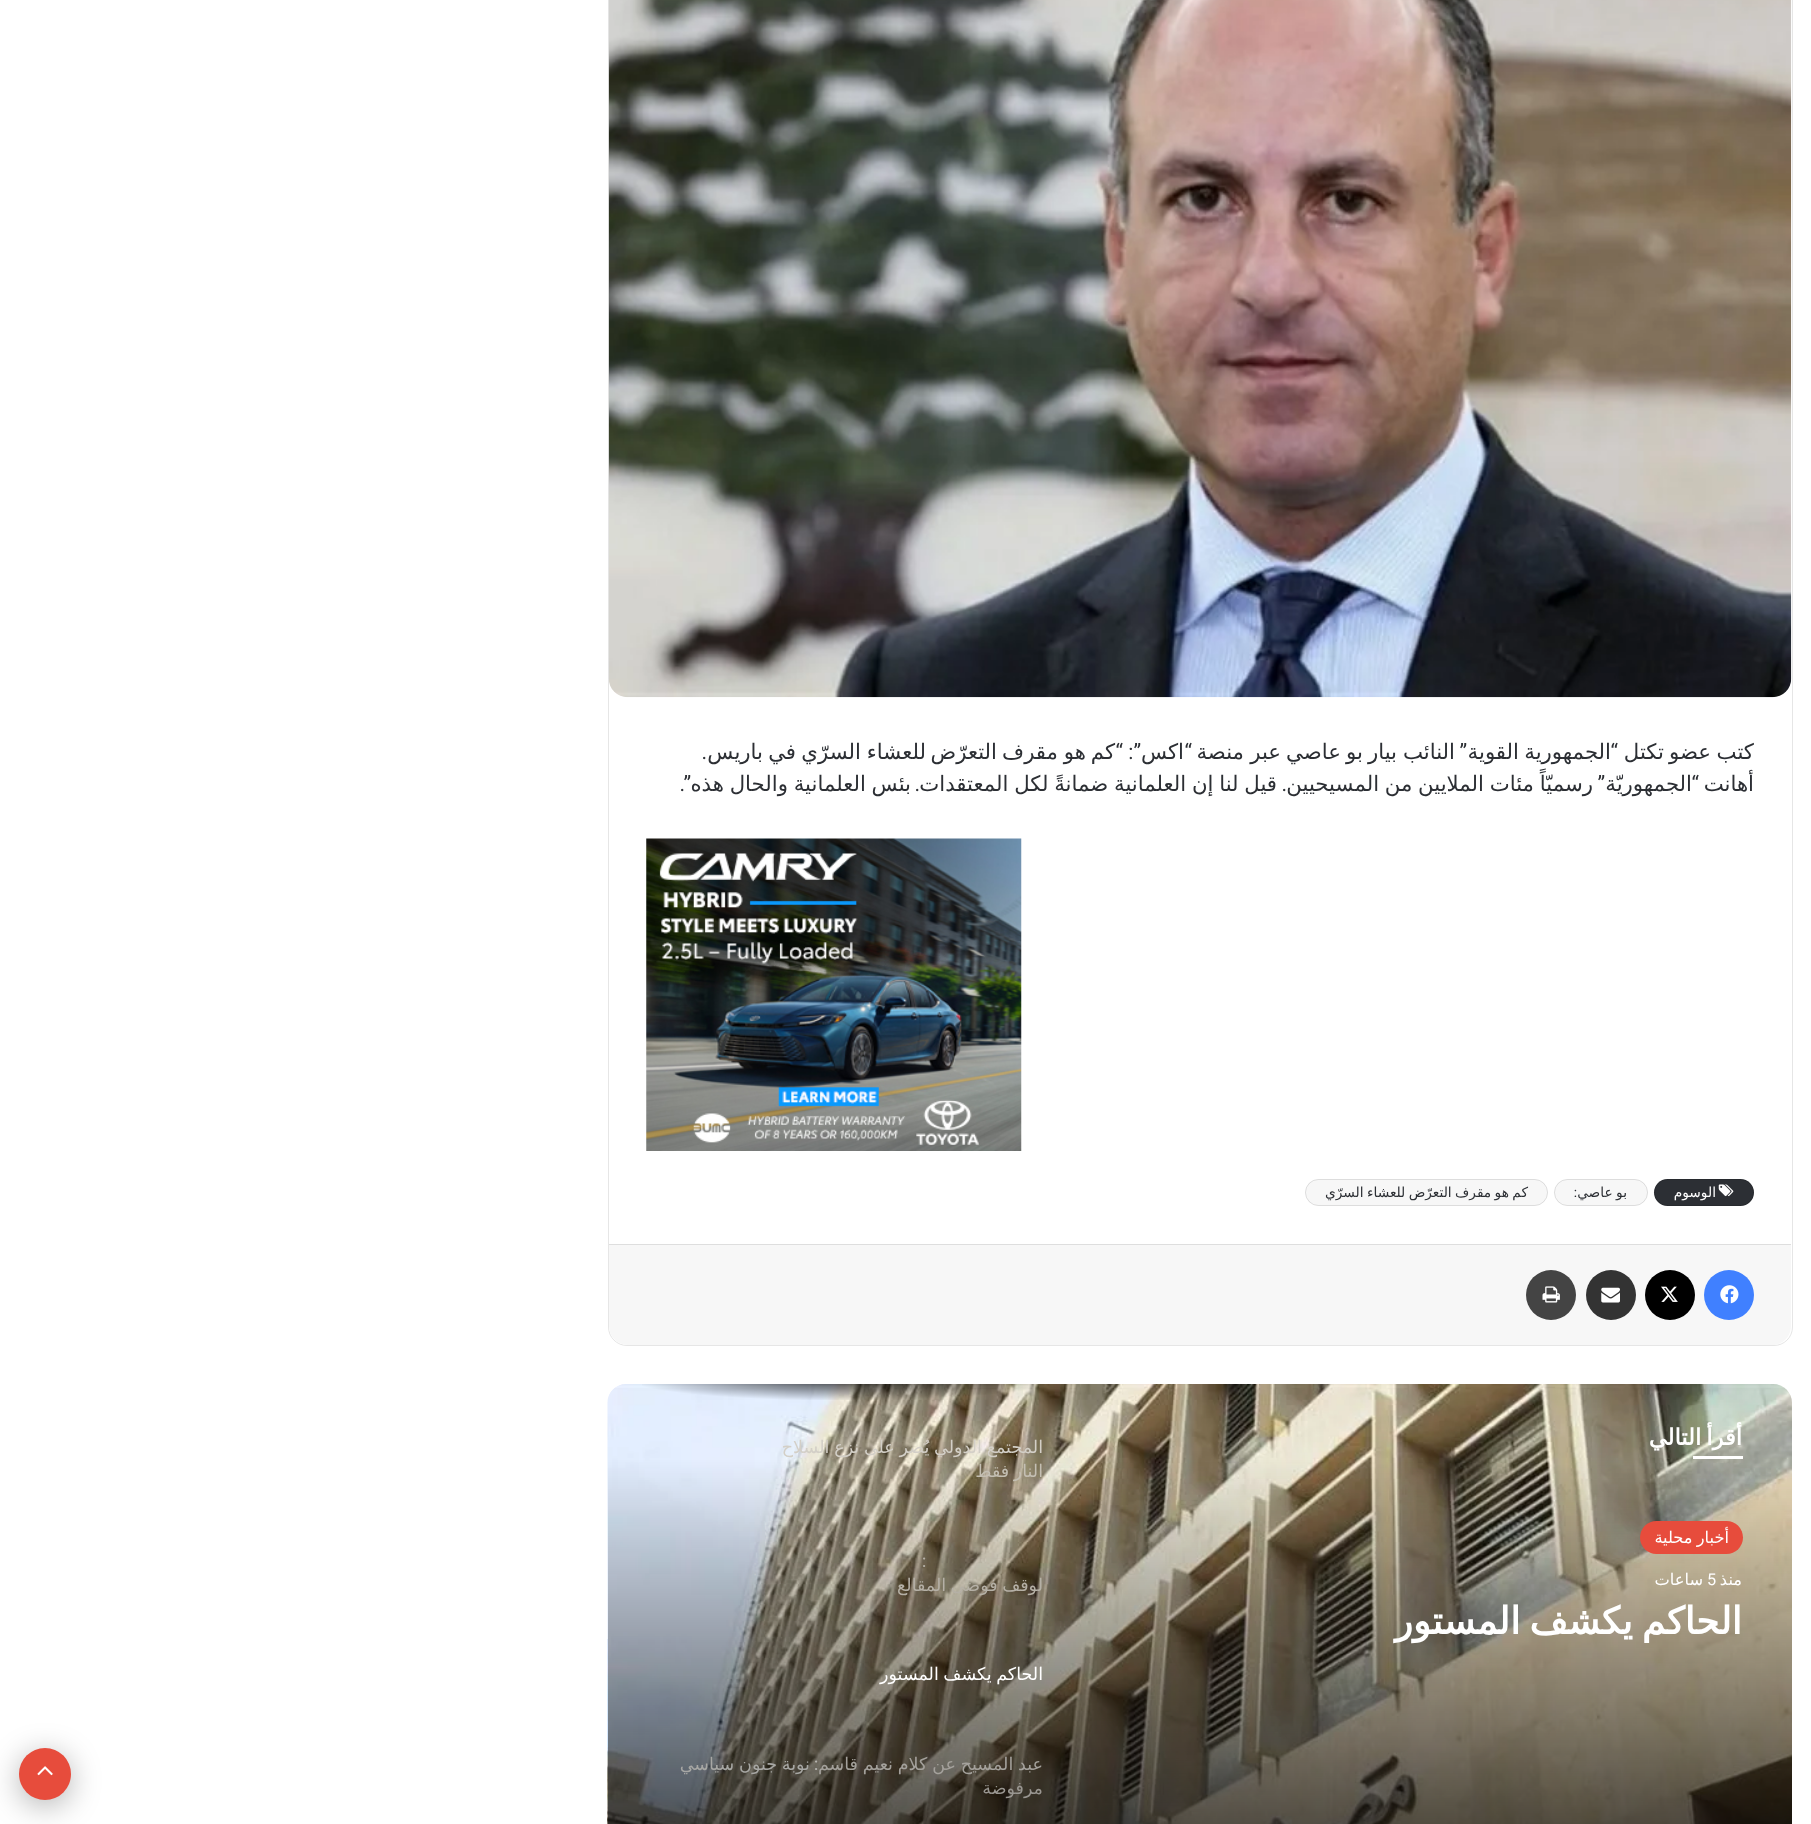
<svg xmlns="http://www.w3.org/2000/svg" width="1811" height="1824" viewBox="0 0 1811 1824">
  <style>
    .t1 { font: 21.25px DejaVu Sans; direction: rtl; fill: #2c2f34; }
    .t2 { font: 21.25px Roboto; direction: rtl; fill: #2c2f34; }
    .t3 { font: 13.75px DejaVu Sans; direction: rtl; fill: #fff; }
    .t4 { font: 13.75px DejaVu Sans; direction: rtl; fill: #2c2f34; }
    .t5 { font: 13.75px Roboto; direction: rtl; fill: #2c2f34; }
    .t6 { font: bold 22.5px DejaVu Sans; direction: rtl; fill: #fff; }
    .t7 { font: 16.25px DejaVu Sans; direction: rtl; fill: #fff; }
    .t8 { font: 16.25px Roboto; fill: #fff; }
    .t9 { font: bold 37.5px DejaVu Sans; direction: rtl; fill: #fff; }
    .t10 { font: 17.5px DejaVu Sans; direction: rtl; fill: #d3cfc7; }
    .t11 { font: 17.5px DejaVu Sans; direction: rtl; fill: #c4bfb3; }
    .t12 { font: 17.5px Poppins; direction: rtl; fill: #b5b0a6; }
    .t13 { font: 17.5px DejaVu Sans; direction: rtl; fill: #b5b0a6; }
    .t14 { font: 17.5px DejaVu Sans; direction: rtl; fill: #fff; }
    .t15 { font: 17.5px DejaVu Sans; direction: rtl; fill: #a4a19c; }
    .t16 { font: 17.5px Poppins; direction: rtl; fill: #b6b4af; }
    .t17 { font: 17.5px DejaVu Sans; direction: rtl; fill: #a7a7a4; }
    .t18 { font: 17.5px DejaVu Sans; direction: rtl; fill: #999691; }
  </style>
  <defs>
    <clipPath id="clip1"><rect x="1091" y="1599" width="652" height="45"/></clipPath>
    <radialGradient id="g1" gradientUnits="userSpaceOnUse" cx="0" cy="0" r="1" gradientTransform="matrix(335 0 0 35 844 1378)"><stop offset="0" stop-color="#000" stop-opacity="0.8"/><stop offset="0.65" stop-color="#000" stop-opacity="0"/><stop offset="1" stop-color="#e5e5e5" stop-opacity="0"/></radialGradient>
    <clipPath id="clip2"><rect x="645" y="1435" width="398" height="49"/></clipPath>
    <clipPath id="clip3"><rect x="645" y="1753" width="398" height="48"/></clipPath>
  </defs>
  <rect width="100%" height="100%" fill="#fff"/>
  <rect x="608.5" y="-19.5" width="1184" height="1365" rx="18.5" fill="none" stroke="#e6e6e6"/>
  <image x="608" y="0" width="1184" height="698" href="images/1.png"/>
  <text x="1754" y="759" class="t1">كتب</text>
  <text x="1711" y="759" class="t1">عضو</text>
  <text x="1664" y="759" class="t1">تكتل</text>
  <text x="1618" y="759" class="t2">“</text>
  <text x="1611" y="759" class="t1">الجمهورية</text>
  <text x="1519" y="759" class="t1">القوية</text>
  <text x="1467" y="759" class="t2">”</text>
  <text x="1455" y="759" class="t1">النائب</text>
  <text x="1397" y="759" class="t1">بيار</text>
  <text x="1363" y="759" class="t1">بو</text>
  <text x="1341" y="759" class="t1">عاصي</text>
  <text x="1281" y="759" class="t1">عبر</text>
  <text x="1244" y="759" class="t1">منصة</text>
  <text x="1192" y="759" class="t2">“</text>
  <text x="1184" y="759" class="t1">اكس</text>
  <text x="1141" y="759" class="t2">”: “</text>
  <text x="1115" y="759" class="t1">كم</text>
  <text x="1086" y="759" class="t1">هو</text>
  <text x="1058" y="759" class="t1">مقرف</text>
  <text x="997" y="759" class="t1">التعرّض</text>
  <text x="926" y="759" class="t1">للعشاء</text>
  <text x="861" y="759" class="t1">السرّي</text>
  <text x="796" y="759" class="t1">في</text>
  <text x="763" y="759" class="t1">باريس</text>
  <text x="707" y="759" class="t2">.</text>
  <text x="1754" y="791" class="t1">أهانت</text>
  <text x="1699" y="791" class="t2">“</text>
  <text x="1692" y="791" class="t1">الجمهوريّة</text>
  <text x="1605" y="791" class="t2">”</text>
  <text x="1593" y="791" word-spacing="-1" class="t1">رسميّاً مئات الملايين من المسيحيين</text>
  <text x="1277" y="791" word-spacing="-1" class="t1">قيل لنا إن العلمانية ضمانةً لكل المعتقدات</text>
  <text x="911" y="791" word-spacing="-1" class="t1">بئس العلمانية والحال هذه</text>
  <text x="691" y="791" class="t2">”.</text>
  <text x="1287" y="791" class="t2">.</text>
  <text x="920" y="791" class="t2">.</text>
  <image x="646" y="838" width="376" height="313" href="images/2.png"/>
  <rect x="1654" y="1179" width="100" height="27" rx="13.5" fill="#2c2f34"/>
  <rect x="1654.5" y="1179.5" width="99" height="26" rx="13" fill="none" stroke="#0000001a"/>
  <image x="1718" y="1184" width="16" height="13" href="images/3.png"/>
  <text x="1716" y="1197" class="t3">الوسوم</text>
  <rect x="1554" y="1179" width="94" height="27" rx="13.5" fill="#f7f7f7"/>
  <rect x="1554.5" y="1179.5" width="93" height="26" rx="13" fill="none" stroke="#0000001a"/>
  <text x="1627" y="1197" word-spacing="-1" class="t4">بو عاصي</text>
  <text x="1577" y="1197" class="t5">:</text>
  <rect x="1305" y="1179" width="243" height="27" rx="13.5" fill="#f7f7f7"/>
  <rect x="1305.5" y="1179.5" width="242" height="26" rx="13" fill="none" stroke="#0000001a"/>
  <text x="1528" y="1197" word-spacing="-1" class="t4">كم هو مقرف التعرّض للعشاء السرّي</text>
  <path d="M609 1244H1791V1326C1791 1336.5 1782.5 1345 1772 1345H628C617.5 1345 609 1336.5 609 1326Z" fill="#f7f7f7"/>
  <rect x="609" y="1244" width="1182" height="1" fill="#dedede"/>
  <circle cx="1729" cy="1295" r="25" fill="#4080ff"/>
  <image x="1720" y="1285" width="19" height="19" href="images/4.png"/>
  <circle cx="1670" cy="1295" r="25" fill="#000"/>
  <image x="1661" y="1286" width="17" height="16" href="images/5.png"/>
  <circle cx="1611" cy="1295" r="25" fill="#333"/>
  <image x="1601" y="1287" width="19" height="16" href="images/6.png"/>
  <circle cx="1551" cy="1295" r="25" fill="#444"/>
  <image x="1542" y="1286" width="18" height="17" href="images/7.png"/>
  <image x="607" y="1384" width="1185" height="440" href="images/8.png"/>
  <text x="1742" y="1445" word-spacing="-2" class="t6">أقرأ التالي</text>
  <rect x="1693" y="1456" width="50" height="3" fill="#fff"/>
  <rect x="1640" y="1521" width="103" height="33" rx="16.5" fill="#e74c3c"/>
  <text x="1729" y="1543" word-spacing="-1" class="t7">أخبار محلية</text>
  <text x="1742" y="1585" class="t7">منذ</text>
  <text x="1707" y="1585" class="t8">5</text>
  <text x="1703" y="1585" class="t7">ساعات</text>
  <g clip-path="url(#clip1)">
    <text x="1742" y="1634" word-spacing="-3" class="t9">الحاكم يكشف المستور</text>
  </g>
  <rect x="642" y="1384" width="403" height="16" fill="url(#g1)"/>
  <g clip-path="url(#clip2)">
    <text x="1043" y="1453" word-spacing="-0.75" class="t10">المجتمع الدولي يُصر على نزع السلاح</text>
  </g>
  <text x="1043" y="1477" word-spacing="-1" class="t11">النار فقط</text>
  <text x="926" y="1567" class="t12">:</text>
  <text x="1043" y="1591" word-spacing="-1" class="t13">لوقف فوضى المقالع</text>
  <text x="1043" y="1680" word-spacing="-1" class="t14">الحاكم يكشف المستور</text>
  <g clip-path="url(#clip3)">
    <text x="1043" y="1770" word-spacing="-0.75" class="t15">عبد المسيح عن كلام نعيم قاسم</text>
  </g>
  <text x="818" y="1770" class="t16">:</text>
  <text x="810" y="1770" word-spacing="-0.75" class="t17">نوبة جنون سياسي</text>
  <text x="1043" y="1794" class="t18">مرفوضة</text>
  <rect x="19" y="1754" width="52" height="52" rx="26" fill="#0000004d" filter="blur(15.5px)"/>
  <circle cx="45" cy="1774" r="26" fill="#e74c3c"/>
  <image x="37" y="1766" width="16" height="10" href="images/9.png"/>
</svg>
